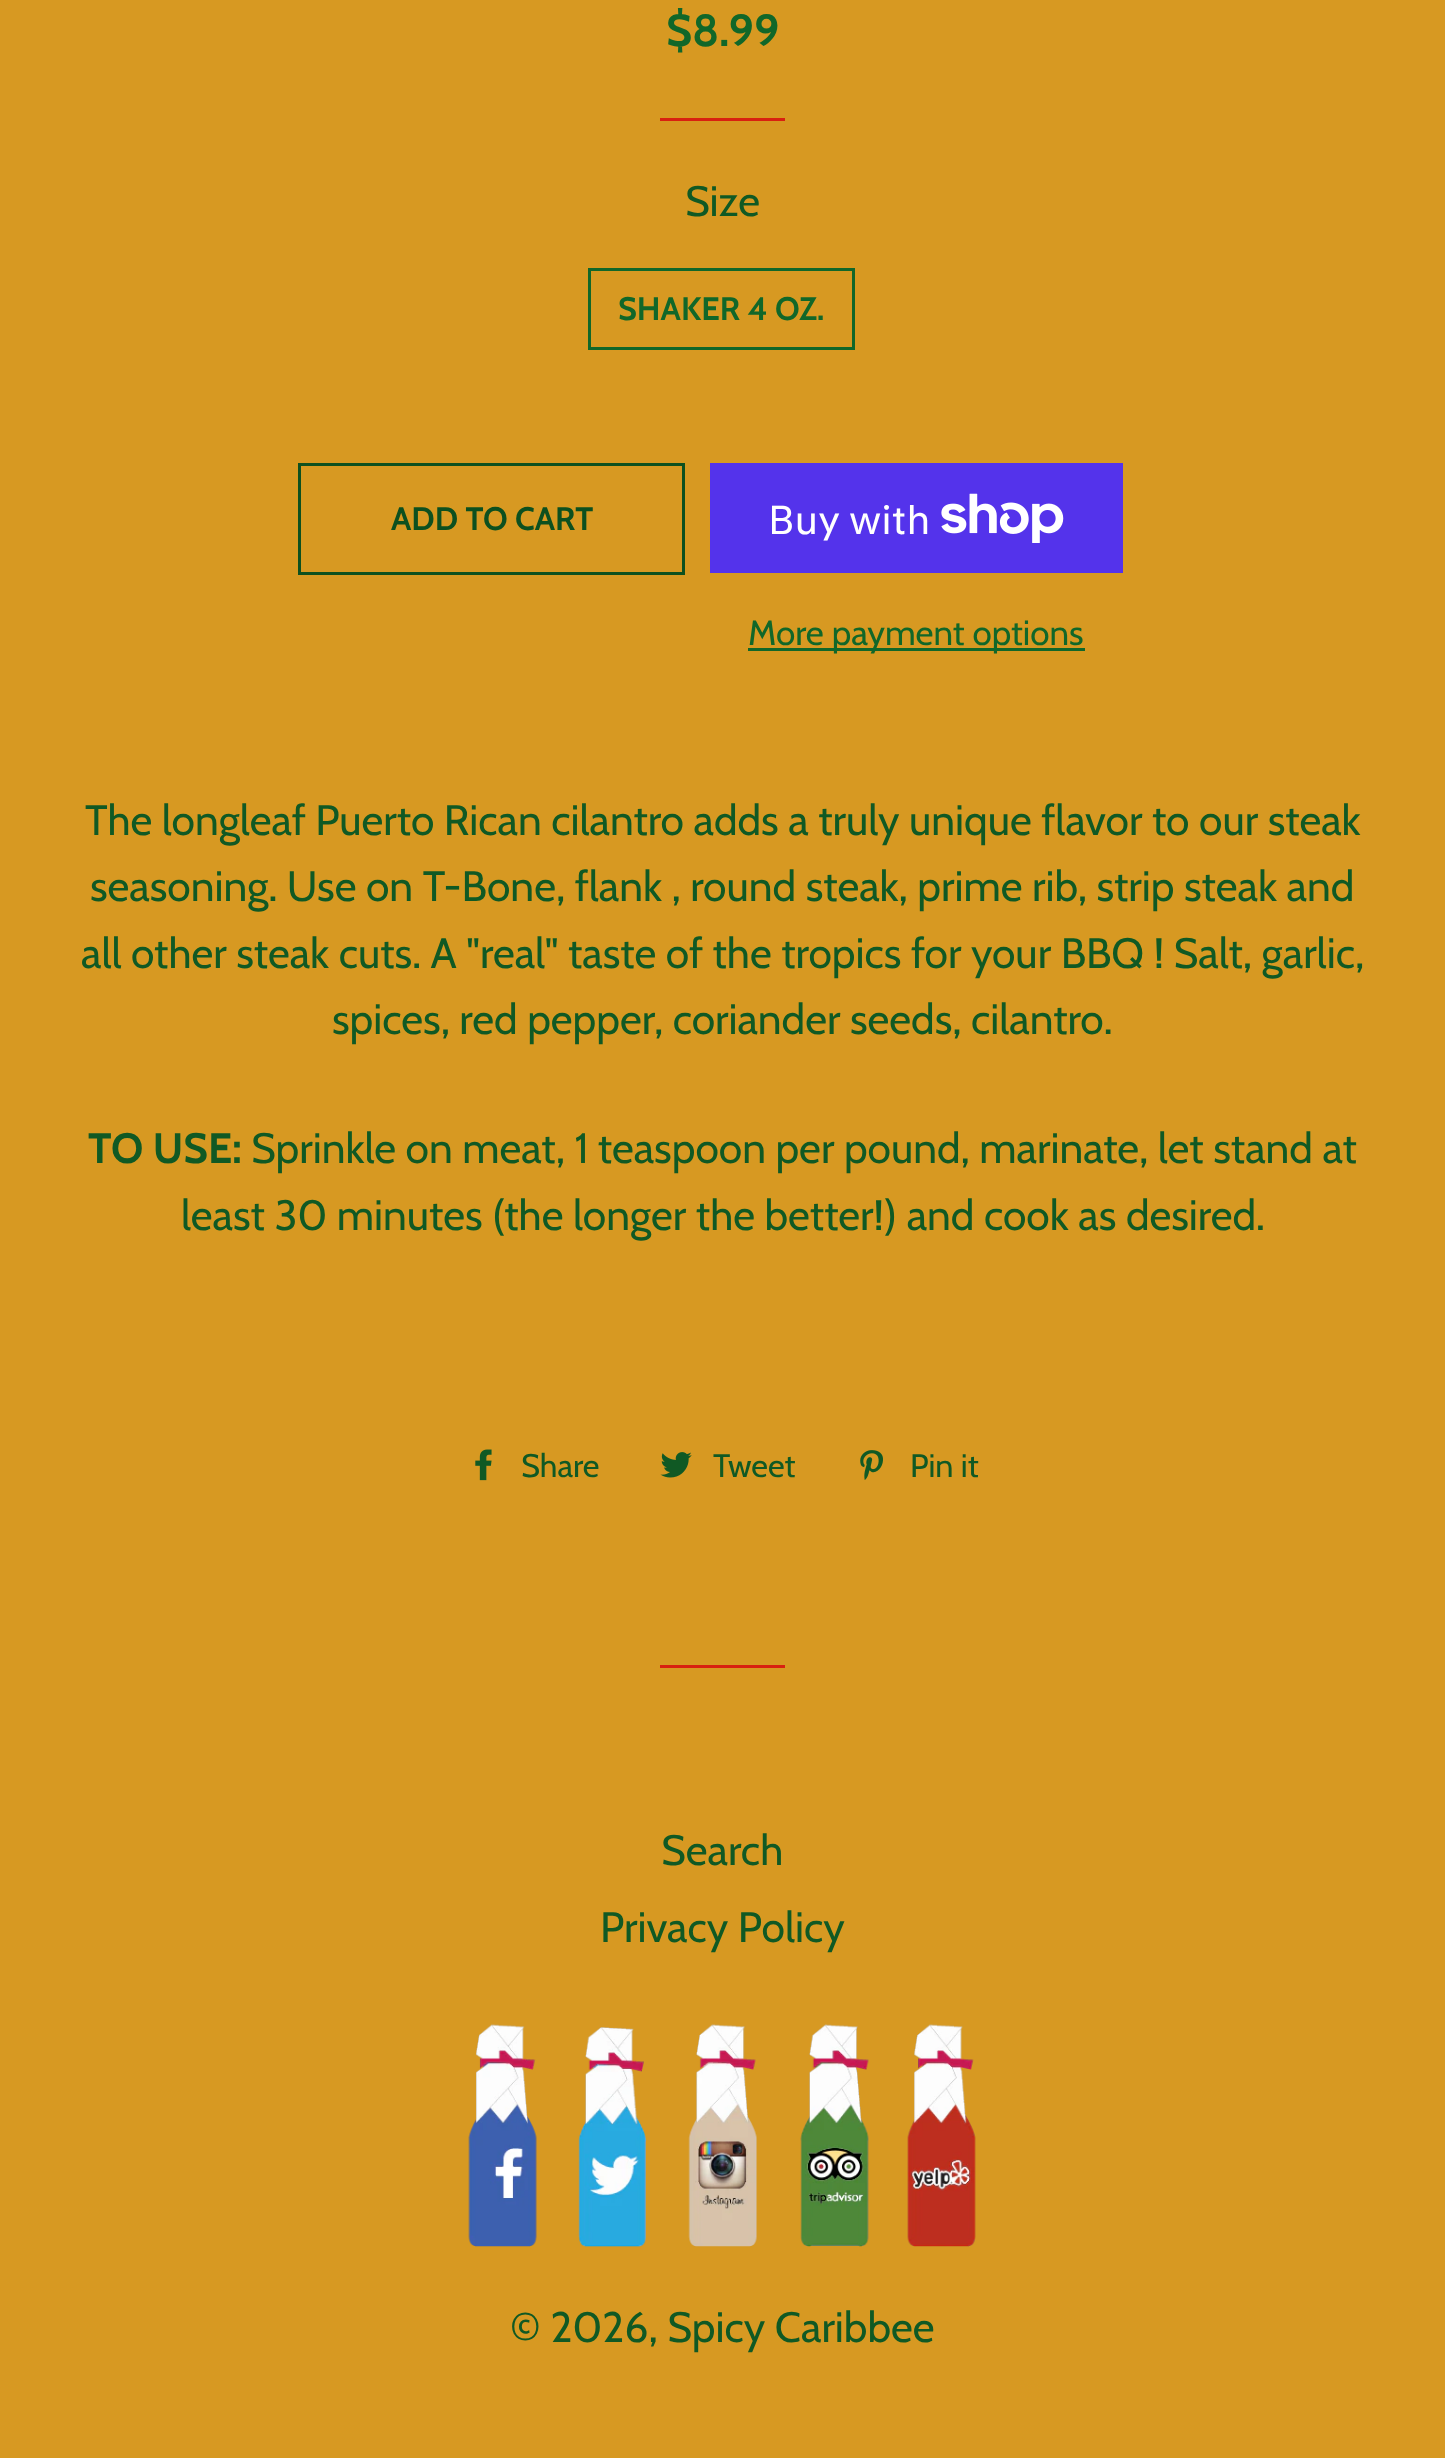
<svg xmlns="http://www.w3.org/2000/svg" width="1445" height="2458" viewBox="0 0 1445 2458">
  <style>
    .t1 { font: bold 45px Cabin; fill: #116729; }
    .t2 { font: 42.5px Cabin; fill: #105924; }
    .t3 { font: bold 32.5px Cabin; fill: #116729; }
    .t4 { font: bold 32.5px Cabin; fill: #0d501f; }
    .t5 { font: 40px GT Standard; fill: #fff; }
    .t6 { font: 35px Cabin; fill: #116729; }
    .t7 { font: bold 42.5px Cabin; fill: #105924; }
    .t8 { font: 32.5px Cabin; fill: #105924; }
  </style>
  <rect width="100%" height="100%" fill="#d79922"/>
  <text x="666" y="46" class="t1">$8.99</text>
  <rect x="660" y="118" width="125" height="3" fill="#d82010"/>
  <text x="685" y="216" class="t2">Size</text>
  <rect x="589.5" y="269.5" width="264" height="79" fill="none" stroke="#116729" stroke-width="3"/>
  <text x="618" y="320" class="t3">SHAKER 4 OZ.</text>
  <rect x="299.5" y="464.5" width="384" height="109" fill="none" stroke="#0d501f" stroke-width="3"/>
  <text x="391" y="530" class="t4">ADD TO CART</text>
  <rect x="710" y="463" width="413" height="110" fill="#5433eb"/>
  <text x="768" y="534" class="t5">Buy with</text>
  <image x="941" y="493" width="123" height="50" href="images/1.png"/>
  <rect x="748" y="648" width="337" height="3" fill="#116729"/>
  <text x="748" y="645" class="t6">More payment options</text>
  <text x="85" y="835" class="t2">The longleaf Puerto Rican cilantro adds a truly unique flavor to our steak</text>
  <text x="90" y="901" class="t2">seasoning. Use on T-Bone, flank , round steak, prime rib, strip steak and</text>
  <text x="81" y="968" class="t2">all other steak cuts. A "real" taste of the tropics for your BBQ ! Salt, garlic,</text>
  <text x="332" y="1034" class="t2">spices, red pepper, coriander seeds, cilantro.</text>
  <text x="88" y="1163" class="t7">TO USE:</text>
  <text x="251" y="1163" class="t2">Sprinkle on meat, 1 teaspoon per pound, marinate, let stand at</text>
  <text x="181" y="1230" class="t2">least 30 minutes (the longer the better!) and cook as desired.</text>
  <image x="475" y="1449" width="17" height="32" href="images/2.png"/>
  <text x="521" y="1477" class="t8">Share</text>
  <image x="660" y="1452" width="32" height="26" href="images/3.png"/>
  <text x="713" y="1477" class="t8">Tweet</text>
  <image x="860" y="1450" width="23" height="30" href="images/4.png"/>
  <text x="910" y="1477" class="t8">Pin it</text>
  <rect x="660" y="1665" width="125" height="3" fill="#d82010"/>
  <text x="661" y="1865" class="t2">Search</text>
  <text x="600" y="1942" class="t2">Privacy Policy</text>
  <image x="468" y="2024" width="69" height="223" href="images/5.png"/>
  <image x="578" y="2027" width="69" height="220" href="images/6.png"/>
  <image x="688" y="2024" width="69" height="223" href="images/7.png"/>
  <image x="800" y="2024" width="69" height="223" href="images/8.png"/>
  <image x="907" y="2024" width="69" height="223" href="images/9.png"/>
  <text x="510" y="2342" class="t2">© 2026, Spicy Caribbee</text>
</svg>
